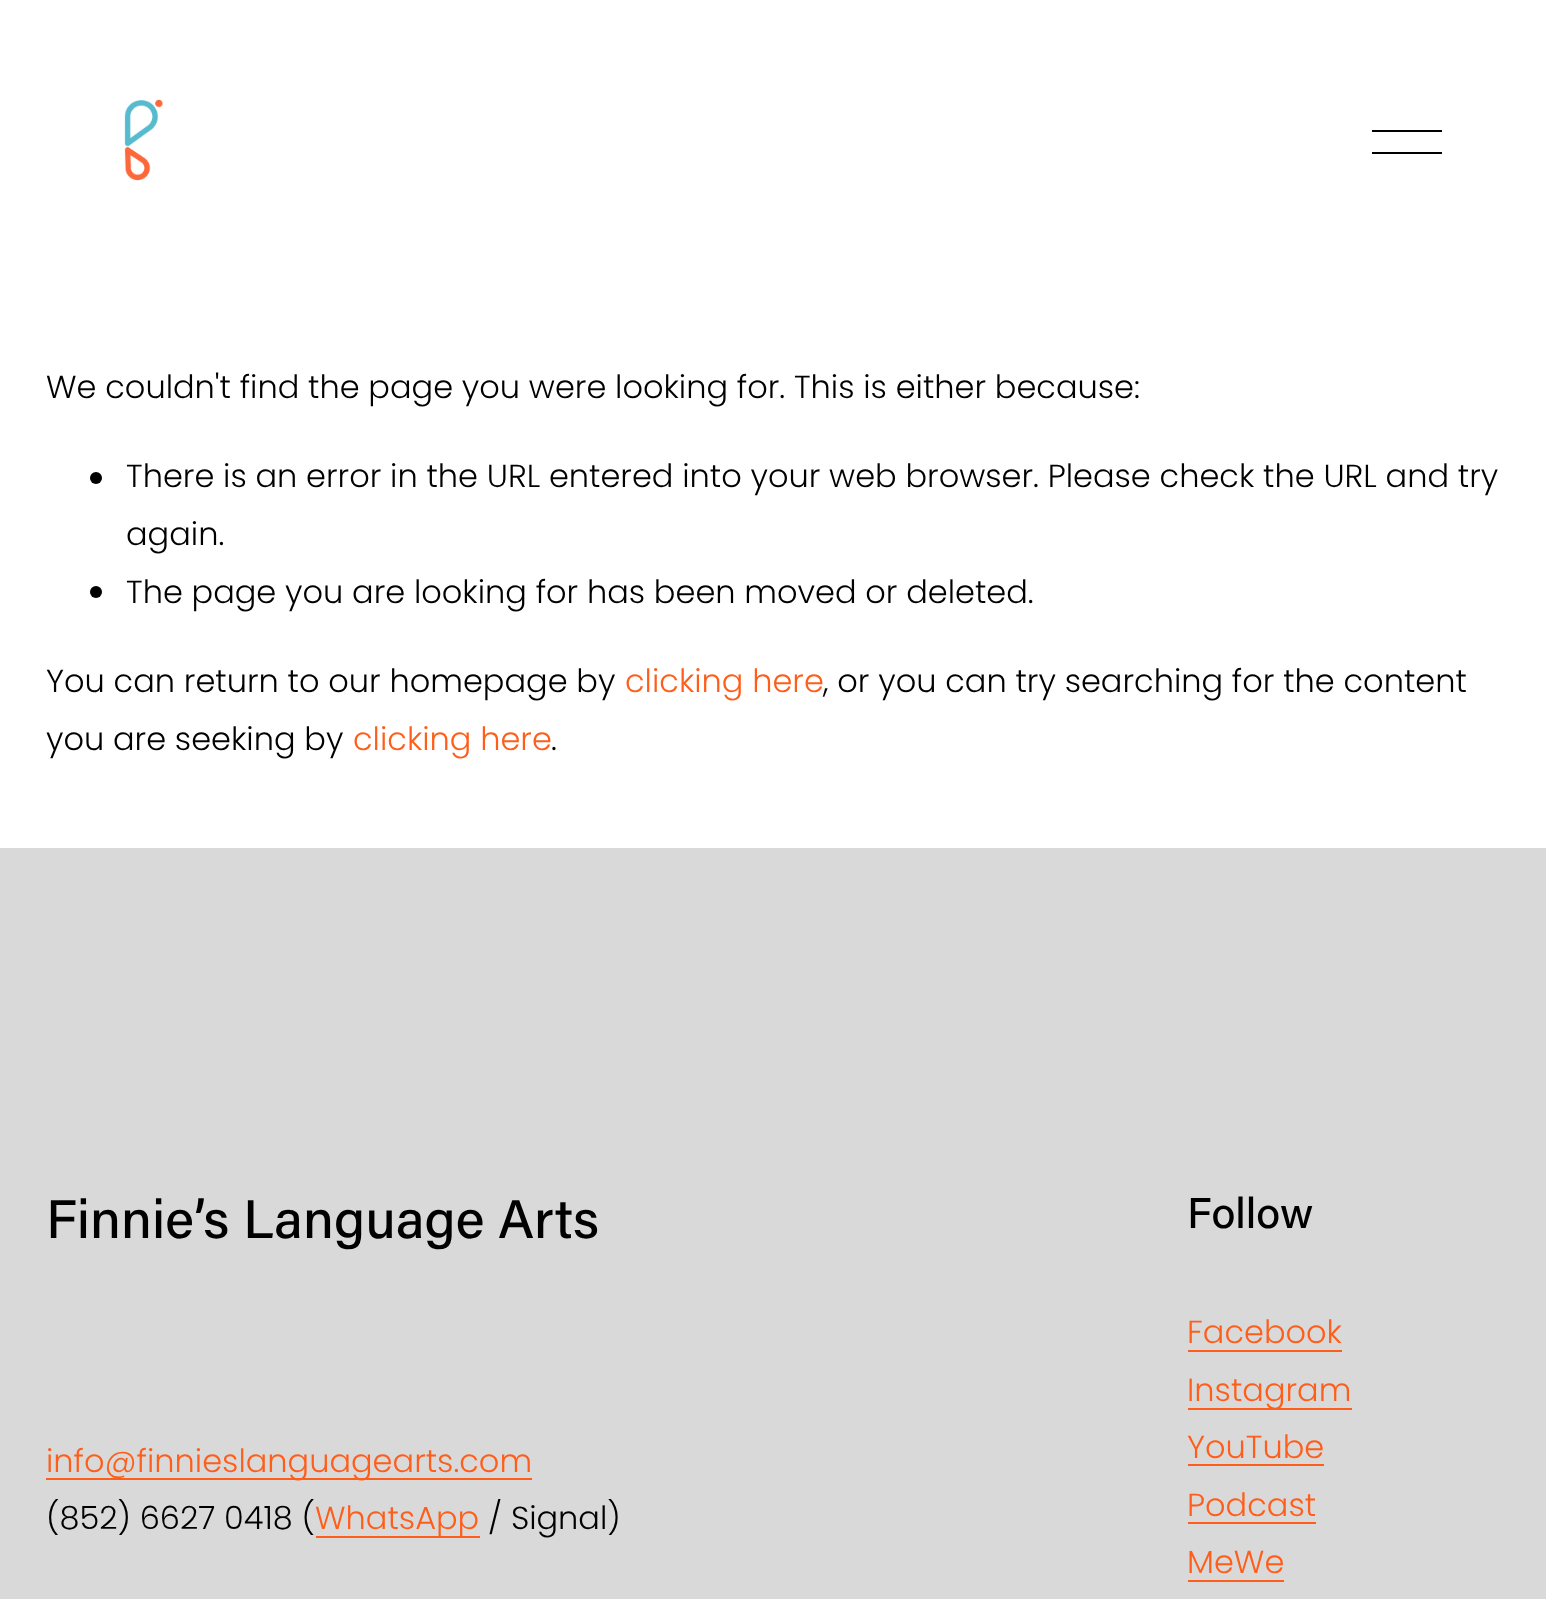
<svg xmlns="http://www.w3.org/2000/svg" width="1546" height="1599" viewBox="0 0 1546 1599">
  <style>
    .t1 { font: 300 32px Poppins; fill: #000; }
    .t2 { font: 300 32px Poppins; fill: #ff5e1a; }
    .t3 { font: 500 54.25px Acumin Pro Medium; fill: #000; }
    .t4 { font: 500 43px Acumin Pro Medium; fill: #000; }
  </style>
  <rect width="100%" height="100%" fill="#fff"/>
  <image x="124" y="99" width="39" height="82" href="images/1.png"/>
  <rect x="1372" y="130" width="70" height="2" fill="#000"/>
  <rect x="1372" y="152" width="70" height="2" fill="#000"/>
  <text x="46" y="398" class="t1">We couldn't find the page you were looking for. This is either because:</text>
  <circle cx="96" cy="478" r="6" fill="#000"/>
  <text x="126" y="487" class="t1">There is an error in the URL entered into your web browser. Please check the URL and try</text>
  <text x="126" y="545" class="t1">again.</text>
  <circle cx="96" cy="592" r="6" fill="#000"/>
  <text x="126" y="603" class="t1">The page you are looking for has been moved or deleted.</text>
  <text x="46" y="692" class="t1">You can return to our homepage by</text>
  <text x="625" y="692" class="t2">clicking here</text>
  <text x="823" y="692" class="t1">, or you can try searching for the content</text>
  <text x="46" y="750" class="t1">you are seeking by</text>
  <text x="353" y="750" class="t2">clicking here</text>
  <text x="551" y="750" class="t1">.</text>
  <rect x="0" y="848" width="1546" height="751" fill="#dad9d9"/>
  <text x="46" y="1238" class="t3">Finnie’s Language Arts</text>
  <rect x="46" y="1478" width="486" height="2" fill="#ff5e1a"/>
  <text x="46" y="1472" class="t2">info@finnieslanguagearts.com</text>
  <text x="46" y="1529" class="t1">(852) 6627 0418 (</text>
  <rect x="316" y="1536" width="164" height="2" fill="#ff5e1a"/>
  <text x="315" y="1529" class="t2">WhatsApp</text>
  <text x="488" y="1529" class="t1">/ Signal)</text>
  <text x="1187" y="1228" class="t4">Follow</text>
  <text x="1187" y="1343" class="t2">Facebook</text>
  <rect x="1188" y="1350" width="154" height="2" fill="#ff5e1a"/>
  <rect x="1188" y="1408" width="164" height="2" fill="#ff5e1a"/>
  <text x="1187" y="1401" class="t2">Instagram</text>
  <text x="1187" y="1458" class="t2">YouTube</text>
  <rect x="1188" y="1464" width="136" height="2" fill="#ff5e1a"/>
  <text x="1187" y="1516" class="t2">Podcast</text>
  <rect x="1188" y="1522" width="128" height="2" fill="#ff5e1a"/>
  <text x="1187" y="1573" class="t2">MeWe</text>
  <rect x="1188" y="1580" width="96" height="2" fill="#ff5e1a"/>
</svg>
